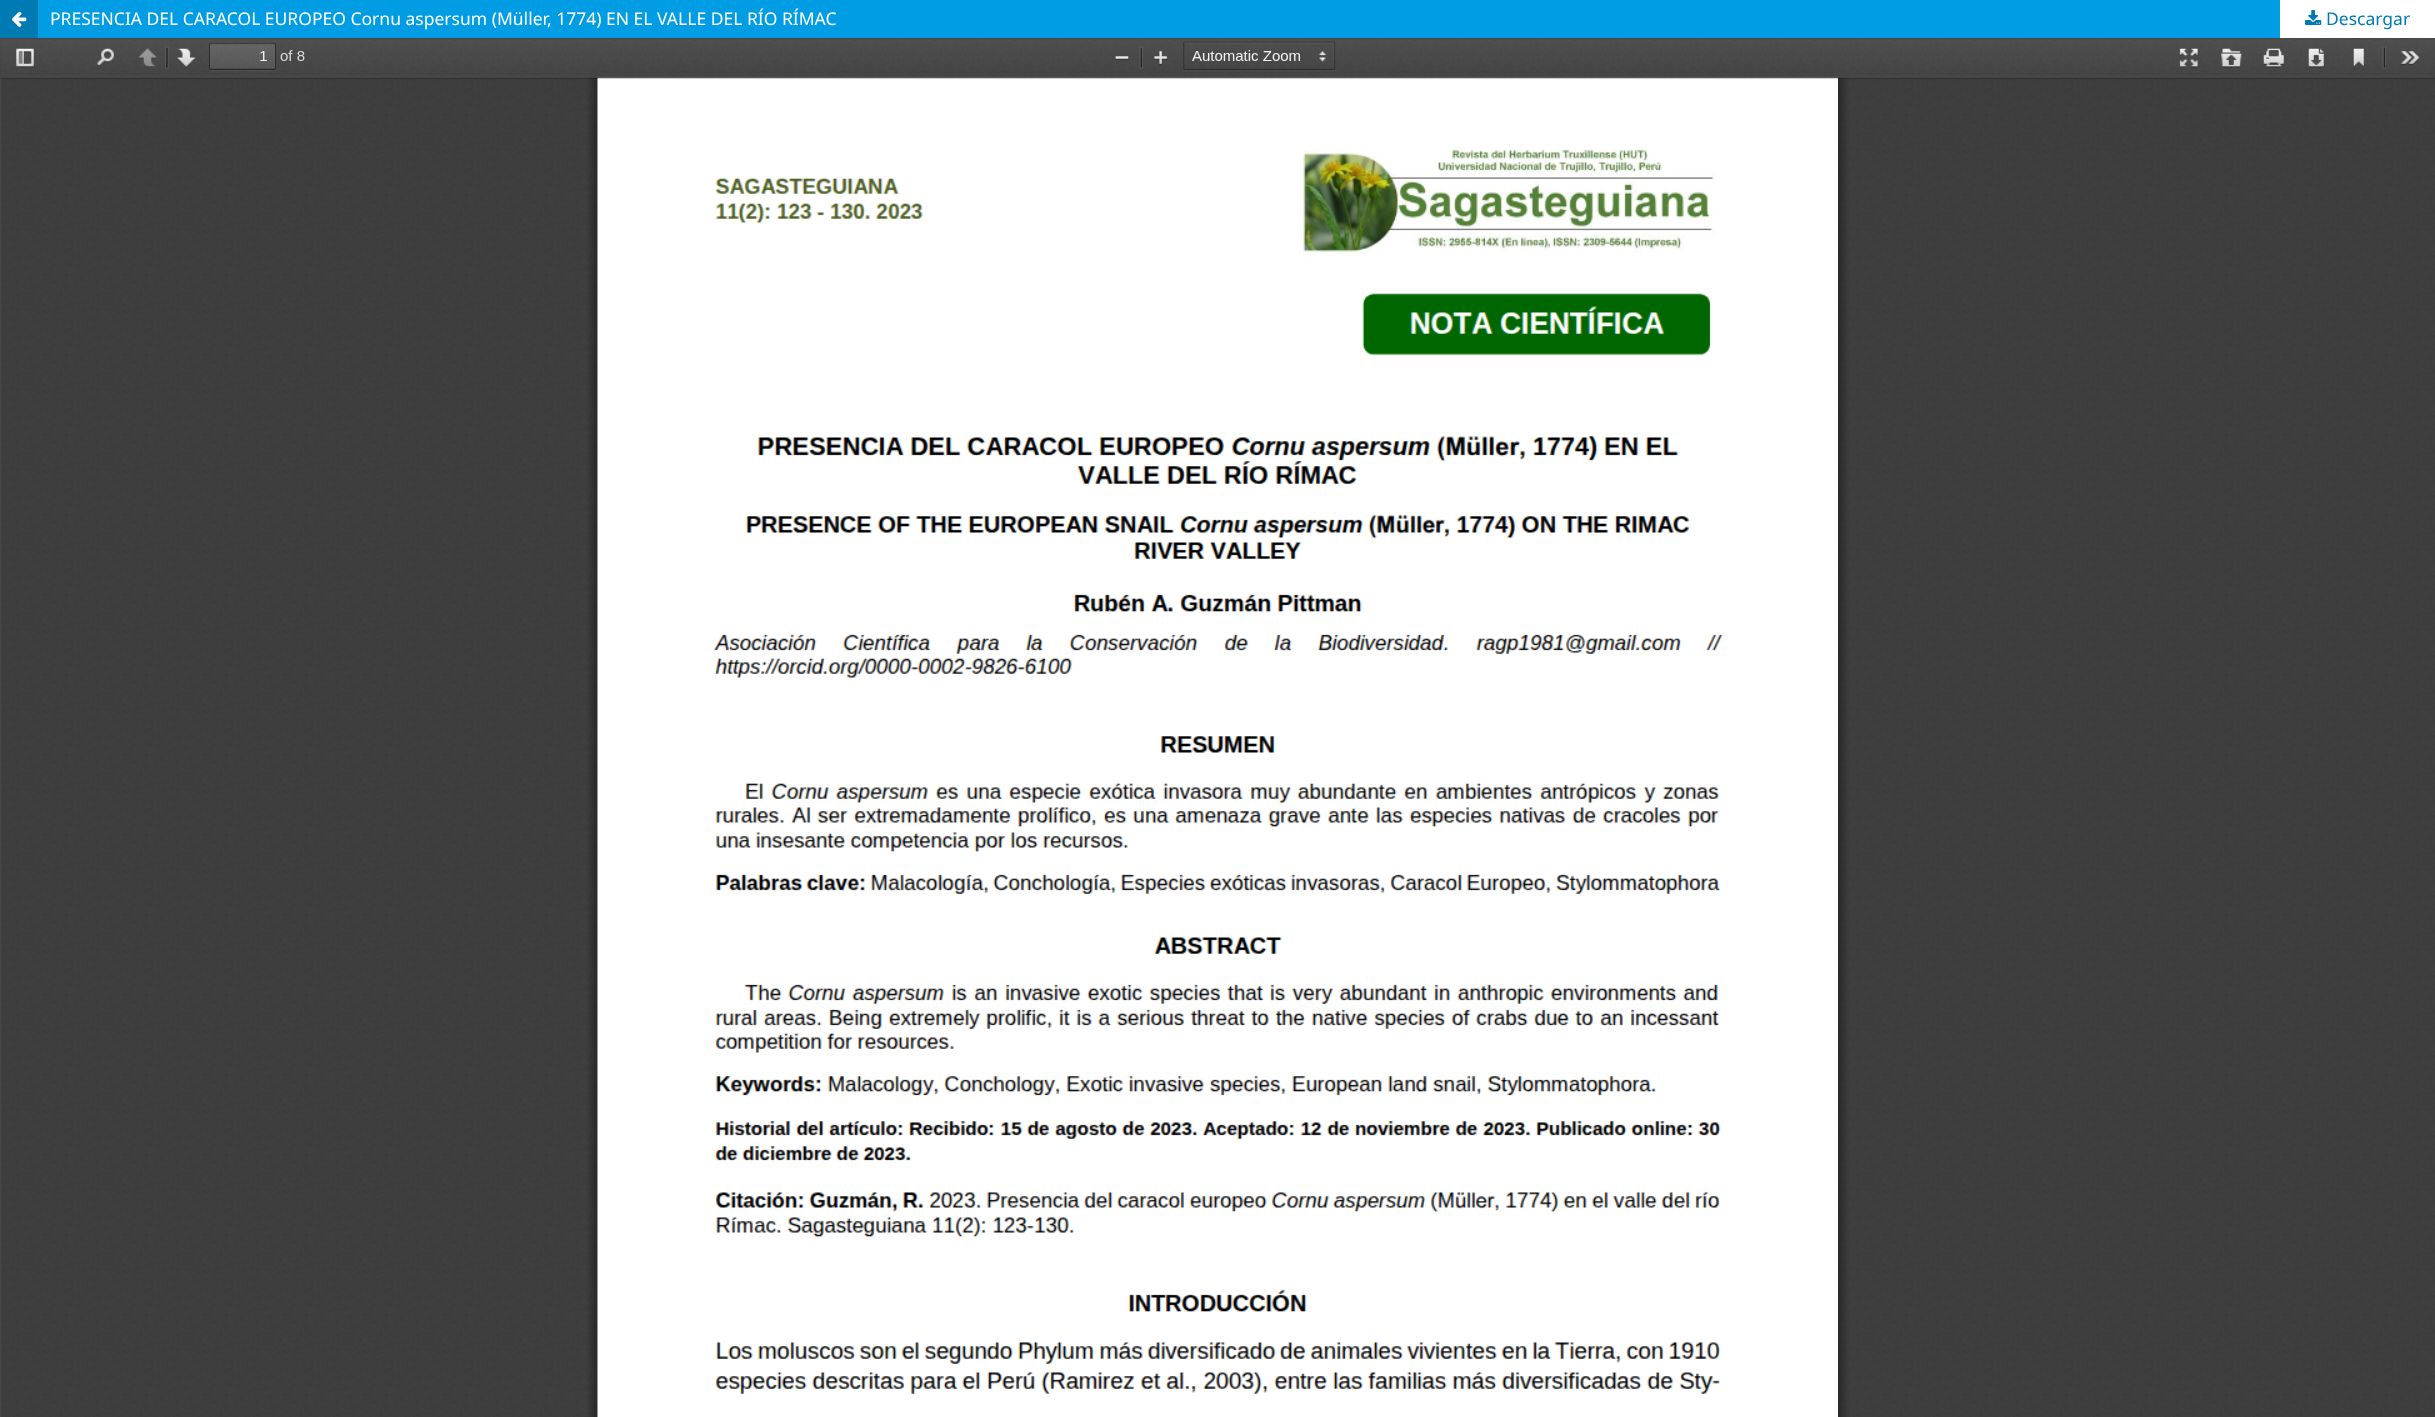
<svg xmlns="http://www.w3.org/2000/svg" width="2435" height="1417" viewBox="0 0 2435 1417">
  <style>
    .t1 { font: 17.5px Noto Sans; fill: #fff; }
    .t2 { font: 17.5px Noto Sans; fill: #007ab2; }
  </style>
  <rect width="100%" height="100%" fill="#fff"/>
  <rect x="38" y="0" width="2242" height="38" fill="#009de5"/>
  <rect x="0" y="0" width="38" height="38" fill="#007ab2"/>
  <image x="11" y="11" width="16" height="16" href="images/1.png"/>
  <text x="50" y="25" class="t1">PRESENCIA DEL CARACOL EUROPEO Cornu aspersum (Müller, 1774) EN EL VALLE DEL RÍO RÍMAC</text>
  <image x="2305" y="10" width="17" height="15" href="images/2.png"/>
  <text x="2326" y="25" class="t2">Descargar</text>
  <image x="0" y="38" width="2435" height="1379" href="images/3.png"/>
</svg>
